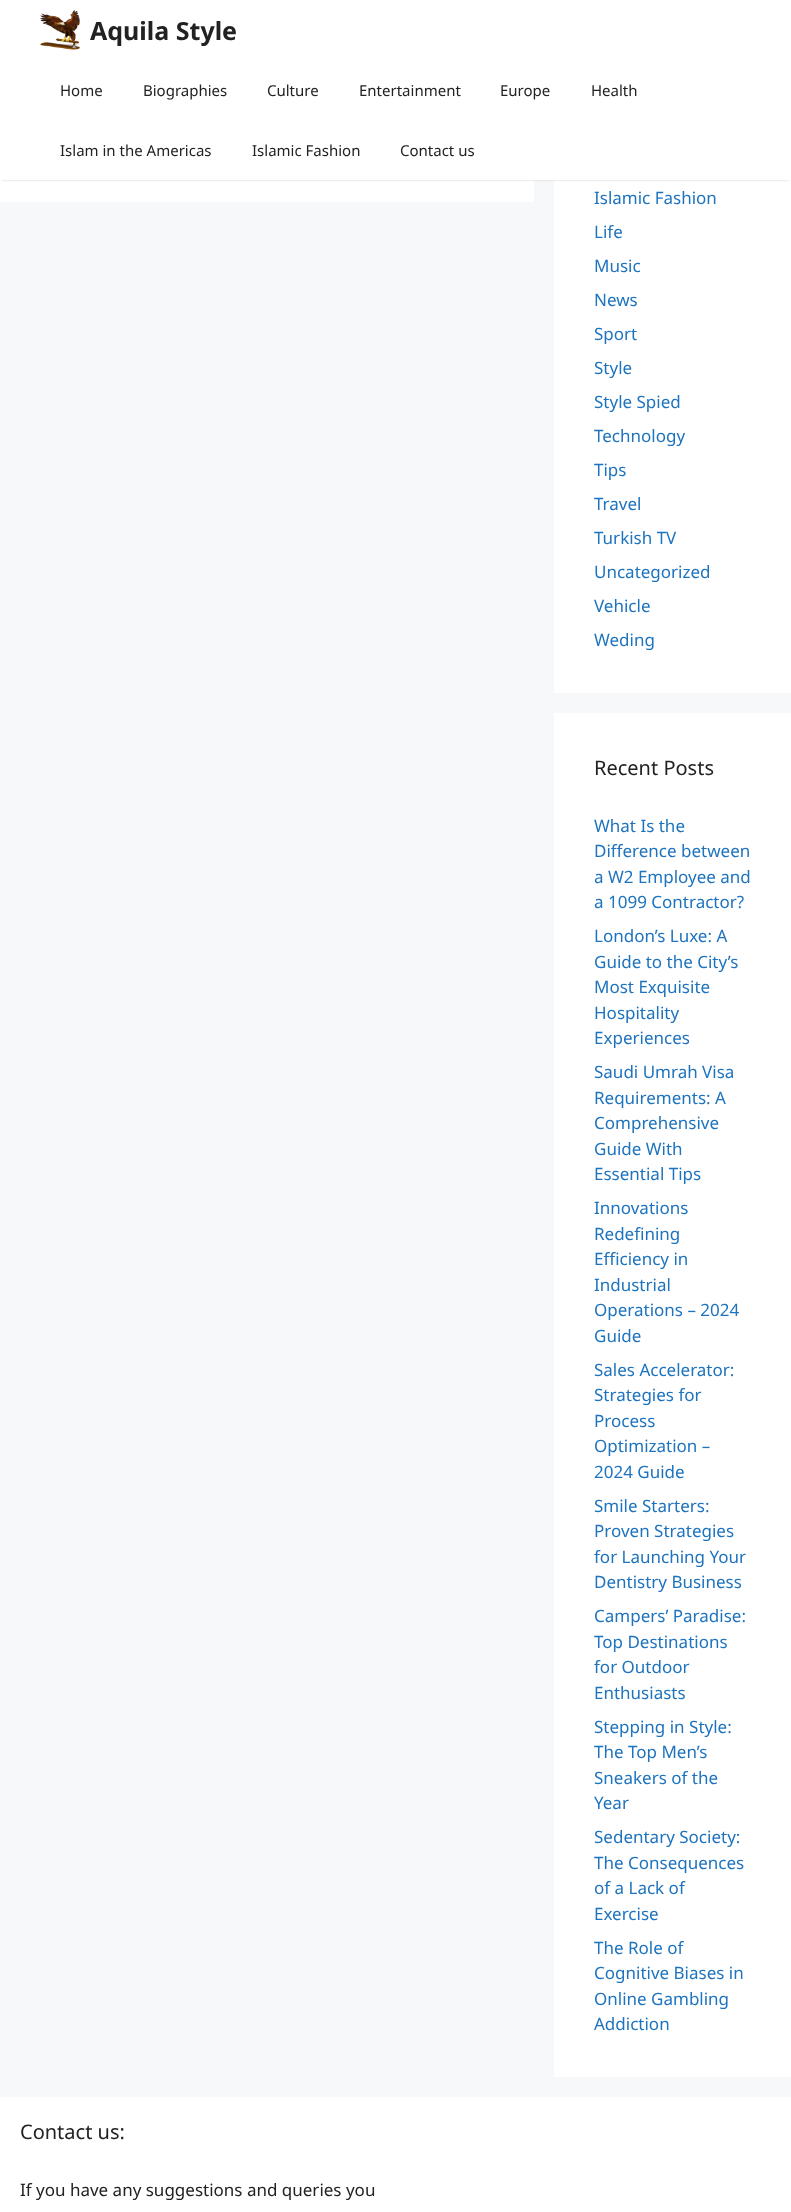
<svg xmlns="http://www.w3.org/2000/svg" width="791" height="2212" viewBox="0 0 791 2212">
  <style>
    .t1 { font: bold 25px Noto Sans; fill: #222; }
    .t2 { font: 15px Noto Sans; fill: #222; }
    .t3 { font: 17px Noto Sans; fill: #1e73be; }
    .t4 { font: 20px Noto Sans; fill: #222; }
    .t5 { font: 17px Noto Sans; fill: #222; }
  </style>
  <rect width="100%" height="100%" fill="#f7f8f9"/>
  <rect x="0" y="180" width="534" height="22" fill="#fff"/>
  <rect x="554" y="180" width="237" height="513" fill="#fff"/>
  <rect x="2" y="4" width="787" height="176" fill="#00000033" filter="blur(1px)"/>
  <rect x="0" y="0" width="791" height="180" fill="#fff"/>
  <image x="40" y="10" width="40" height="40" href="images/1.png"/>
  <text x="90" y="40" class="t1">Aquila Style</text>
  <text x="60" y="96" class="t2">Home</text>
  <text x="143" y="96" class="t2">Biographies</text>
  <text x="267" y="96" class="t2">Culture</text>
  <text x="359" y="96" class="t2">Entertainment</text>
  <text x="500" y="96" class="t2">Europe</text>
  <text x="591" y="96" class="t2">Health</text>
  <text x="60" y="156" class="t2">Islam in the Americas</text>
  <text x="252" y="156" class="t2">Islamic Fashion</text>
  <text x="400" y="156" class="t2">Contact us</text>
  <text x="594" y="204" class="t3">Islamic Fashion</text>
  <text x="594" y="238" class="t3">Life</text>
  <text x="594" y="272" class="t3">Music</text>
  <text x="594" y="306" class="t3">News</text>
  <text x="594" y="340" class="t3">Sport</text>
  <text x="594" y="374" class="t3">Style</text>
  <text x="594" y="408" class="t3">Style Spied</text>
  <text x="594" y="442" class="t3">Technology</text>
  <text x="594" y="476" class="t3">Tips</text>
  <text x="594" y="510" class="t3">Travel</text>
  <text x="594" y="544" class="t3">Turkish TV</text>
  <text x="594" y="578" class="t3">Uncategorized</text>
  <text x="594" y="612" class="t3">Vehicle</text>
  <text x="594" y="646" class="t3">Weding</text>
  <rect x="554" y="713" width="237" height="1364" fill="#fff"/>
  <text x="594" y="775" class="t4">Recent Posts</text>
  <text x="594" y="832" class="t3">What Is the</text>
  <text x="594" y="857" class="t3">Difference between</text>
  <text x="594" y="883" class="t3">a W2 Employee and</text>
  <text x="594" y="908" class="t3">a 1099 Contractor?</text>
  <text x="594" y="942" class="t3">London’s Luxe: A</text>
  <text x="594" y="968" class="t3">Guide to the City’s</text>
  <text x="594" y="993" class="t3">Most Exquisite</text>
  <text x="594" y="1019" class="t3">Hospitality</text>
  <text x="594" y="1044" class="t3">Experiences</text>
  <text x="594" y="1078" class="t3">Saudi Umrah Visa</text>
  <text x="594" y="1104" class="t3">Requirements: A</text>
  <text x="594" y="1129" class="t3">Comprehensive</text>
  <text x="594" y="1155" class="t3">Guide With</text>
  <text x="594" y="1180" class="t3">Essential Tips</text>
  <text x="594" y="1214" class="t3">Innovations</text>
  <text x="594" y="1240" class="t3">Redefining</text>
  <text x="594" y="1265" class="t3">Efficiency in</text>
  <text x="594" y="1291" class="t3">Industrial</text>
  <text x="594" y="1316" class="t3">Operations – 2024</text>
  <text x="594" y="1342" class="t3">Guide</text>
  <text x="594" y="1376" class="t3">Sales Accelerator:</text>
  <text x="594" y="1401" class="t3">Strategies for</text>
  <text x="594" y="1427" class="t3">Process</text>
  <text x="594" y="1452" class="t3">Optimization –</text>
  <text x="594" y="1478" class="t3">2024 Guide</text>
  <text x="594" y="1512" class="t3">Smile Starters:</text>
  <text x="594" y="1537" class="t3">Proven Strategies</text>
  <text x="594" y="1563" class="t3">for Launching Your</text>
  <text x="594" y="1588" class="t3">Dentistry Business</text>
  <text x="594" y="1622" class="t3">Campers’ Paradise:</text>
  <text x="594" y="1648" class="t3">Top Destinations</text>
  <text x="594" y="1673" class="t3">for Outdoor</text>
  <text x="594" y="1699" class="t3">Enthusiasts</text>
  <text x="594" y="1733" class="t3">Stepping in Style:</text>
  <text x="594" y="1758" class="t3">The Top Men’s</text>
  <text x="594" y="1784" class="t3">Sneakers of the</text>
  <text x="594" y="1809" class="t3">Year</text>
  <text x="594" y="1843" class="t3">Sedentary Society:</text>
  <text x="594" y="1869" class="t3">The Consequences</text>
  <text x="594" y="1894" class="t3">of a Lack of</text>
  <text x="594" y="1920" class="t3">Exercise</text>
  <text x="594" y="1954" class="t3">The Role of</text>
  <text x="594" y="1979" class="t3">Cognitive Biases in</text>
  <text x="594" y="2005" class="t3">Online Gambling</text>
  <text x="594" y="2030" class="t3">Addiction</text>
  <rect x="0" y="2097" width="791" height="115" fill="#fff"/>
  <text x="20" y="2139" class="t4">Contact us:</text>
  <text x="20" y="2196" class="t5">If you have any suggestions and queries you</text>
</svg>
